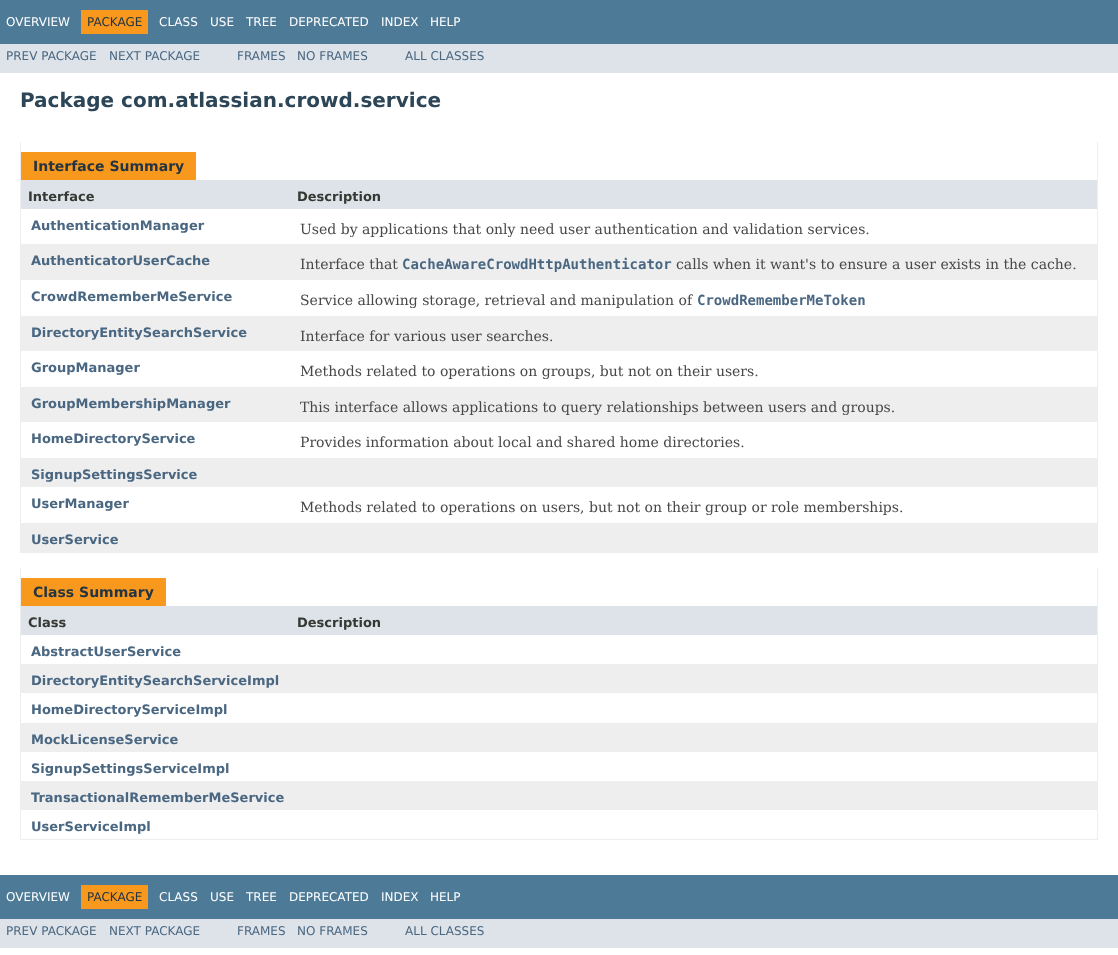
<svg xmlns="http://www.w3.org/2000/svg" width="1118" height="955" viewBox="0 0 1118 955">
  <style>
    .t1 { font: 12px DejaVu Sans; fill: #fff; }
    .t2 { font: 12px DejaVu Sans; fill: #253441; }
    .t3 { font: 12px DejaVu Sans; fill: #4a6782; }
    .t4 { font: bold 20px DejaVu Sans; fill: #2c4557; }
    .t5 { font: bold 14px DejaVu Sans; fill: #253441; }
    .t6 { font: bold 13px DejaVu Sans; fill: #353833; }
    .t7 { font: bold 13px DejaVu Sans; fill: #4a6782; }
    .t8 { font: 14px DejaVu Serif; fill: #474747; }
    .t9 { font: bold 14px DejaVu Sans Mono; fill: #4a6782; }
  </style>
  <rect width="100%" height="100%" fill="#fff"/>
  <rect x="0" y="0" width="1118" height="44" fill="#4d7a97"/>
  <text x="6" y="26" class="t1">OVERVIEW</text>
  <rect x="81" y="10" width="67" height="24" fill="#f8981d"/>
  <text x="87" y="26" class="t2">PACKAGE</text>
  <text x="159" y="26" class="t1">CLASS</text>
  <text x="210" y="26" class="t1">USE</text>
  <text x="246" y="26" class="t1">TREE</text>
  <text x="289" y="26" class="t1">DEPRECATED</text>
  <text x="381" y="26" class="t1">INDEX</text>
  <text x="430" y="26" class="t1">HELP</text>
  <rect x="0" y="44" width="1118" height="29" fill="#dee3e9"/>
  <text x="6" y="60" class="t3">PREV PACKAGE</text>
  <text x="109" y="60" class="t3">NEXT PACKAGE</text>
  <text x="237" y="60" class="t3">FRAMES</text>
  <text x="297" y="60" class="t3">NO FRAMES</text>
  <text x="405" y="60" class="t3">ALL CLASSES</text>
  <text x="20" y="107" class="t4">Package com.atlassian.crowd.service</text>
  <rect x="1097" y="142" width="1" height="411" fill="#eee"/>
  <rect x="20" y="552" width="1078" height="1" fill="#eee"/>
  <rect x="20" y="142" width="1" height="411" fill="#eee"/>
  <rect x="21" y="152" width="175" height="28" fill="#f8981d"/>
  <text x="33" y="171" class="t5">Interface Summary</text>
  <rect x="21" y="180" width="1076" height="29" fill="#dee3e9"/>
  <text x="28" y="201" class="t6">Interface</text>
  <text x="297" y="201" class="t6">Description</text>
  <text x="31" y="230" class="t7">AuthenticationManager</text>
  <text x="300" y="234" class="t8">Used by applications that only need user authentication and validation services.</text>
  <rect x="21" y="244" width="1076" height="36" fill="#eeeeef"/>
  <text x="31" y="265" class="t7">AuthenticatorUserCache</text>
  <text x="300" y="269" class="t8">Interface that</text>
  <text x="402" y="269" class="t9">CacheAwareCrowdHttpAuthenticator</text>
  <text x="676" y="269" class="t8">calls when it want's to ensure a user exists in the cache.</text>
  <text x="31" y="301" class="t7">CrowdRememberMeService</text>
  <text x="300" y="305" class="t8">Service allowing storage, retrieval and manipulation of</text>
  <text x="697" y="305" class="t9">CrowdRememberMeToken</text>
  <rect x="21" y="316" width="1076" height="35" fill="#eeeeef"/>
  <text x="31" y="337" class="t7">DirectoryEntitySearchService</text>
  <text x="300" y="341" class="t8">Interface for various user searches.</text>
  <text x="31" y="372" class="t7">GroupManager</text>
  <text x="300" y="376" class="t8">Methods related to operations on groups, but not on their users.</text>
  <rect x="21" y="387" width="1076" height="35" fill="#eeeeef"/>
  <text x="31" y="408" class="t7">GroupMembershipManager</text>
  <text x="300" y="412" class="t8">This interface allows applications to query relationships between users and groups.</text>
  <text x="31" y="443" class="t7">HomeDirectoryService</text>
  <text x="300" y="447" class="t8">Provides information about local and shared home directories.</text>
  <rect x="21" y="458" width="1076" height="29" fill="#eeeeef"/>
  <text x="31" y="479" class="t7">SignupSettingsService</text>
  <text x="31" y="508" class="t7">UserManager</text>
  <text x="300" y="512" class="t8">Methods related to operations on users, but not on their group or role memberships.</text>
  <rect x="21" y="523" width="1076" height="29" fill="#eeeeef"/>
  <text x="31" y="544" class="t7">UserService</text>
  <rect x="1097" y="568" width="1" height="272" fill="#eee"/>
  <rect x="20" y="839" width="1078" height="1" fill="#eee"/>
  <rect x="20" y="568" width="1" height="272" fill="#eee"/>
  <rect x="21" y="578" width="145" height="28" fill="#f8981d"/>
  <text x="33" y="597" class="t5">Class Summary</text>
  <rect x="21" y="606" width="1076" height="29" fill="#dee3e9"/>
  <text x="28" y="627" class="t6">Class</text>
  <text x="297" y="627" class="t6">Description</text>
  <text x="31" y="656" class="t7">AbstractUserService</text>
  <rect x="21" y="664" width="1076" height="29" fill="#eeeeef"/>
  <text x="31" y="685" class="t7">DirectoryEntitySearchServiceImpl</text>
  <text x="31" y="714" class="t7">HomeDirectoryServiceImpl</text>
  <rect x="21" y="723" width="1076" height="29" fill="#eeeeef"/>
  <text x="31" y="744" class="t7">MockLicenseService</text>
  <text x="31" y="773" class="t7">SignupSettingsServiceImpl</text>
  <rect x="21" y="781" width="1076" height="29" fill="#eeeeef"/>
  <text x="31" y="802" class="t7">TransactionalRememberMeService</text>
  <text x="31" y="831" class="t7">UserServiceImpl</text>
  <rect x="0" y="875" width="1118" height="44" fill="#4d7a97"/>
  <text x="6" y="901" class="t1">OVERVIEW</text>
  <rect x="81" y="885" width="67" height="24" fill="#f8981d"/>
  <text x="87" y="901" class="t2">PACKAGE</text>
  <text x="159" y="901" class="t1">CLASS</text>
  <text x="210" y="901" class="t1">USE</text>
  <text x="246" y="901" class="t1">TREE</text>
  <text x="289" y="901" class="t1">DEPRECATED</text>
  <text x="381" y="901" class="t1">INDEX</text>
  <text x="430" y="901" class="t1">HELP</text>
  <rect x="0" y="919" width="1118" height="29" fill="#dee3e9"/>
  <text x="6" y="935" class="t3">PREV PACKAGE</text>
  <text x="109" y="935" class="t3">NEXT PACKAGE</text>
  <text x="237" y="935" class="t3">FRAMES</text>
  <text x="297" y="935" class="t3">NO FRAMES</text>
  <text x="405" y="935" class="t3">ALL CLASSES</text>
</svg>
